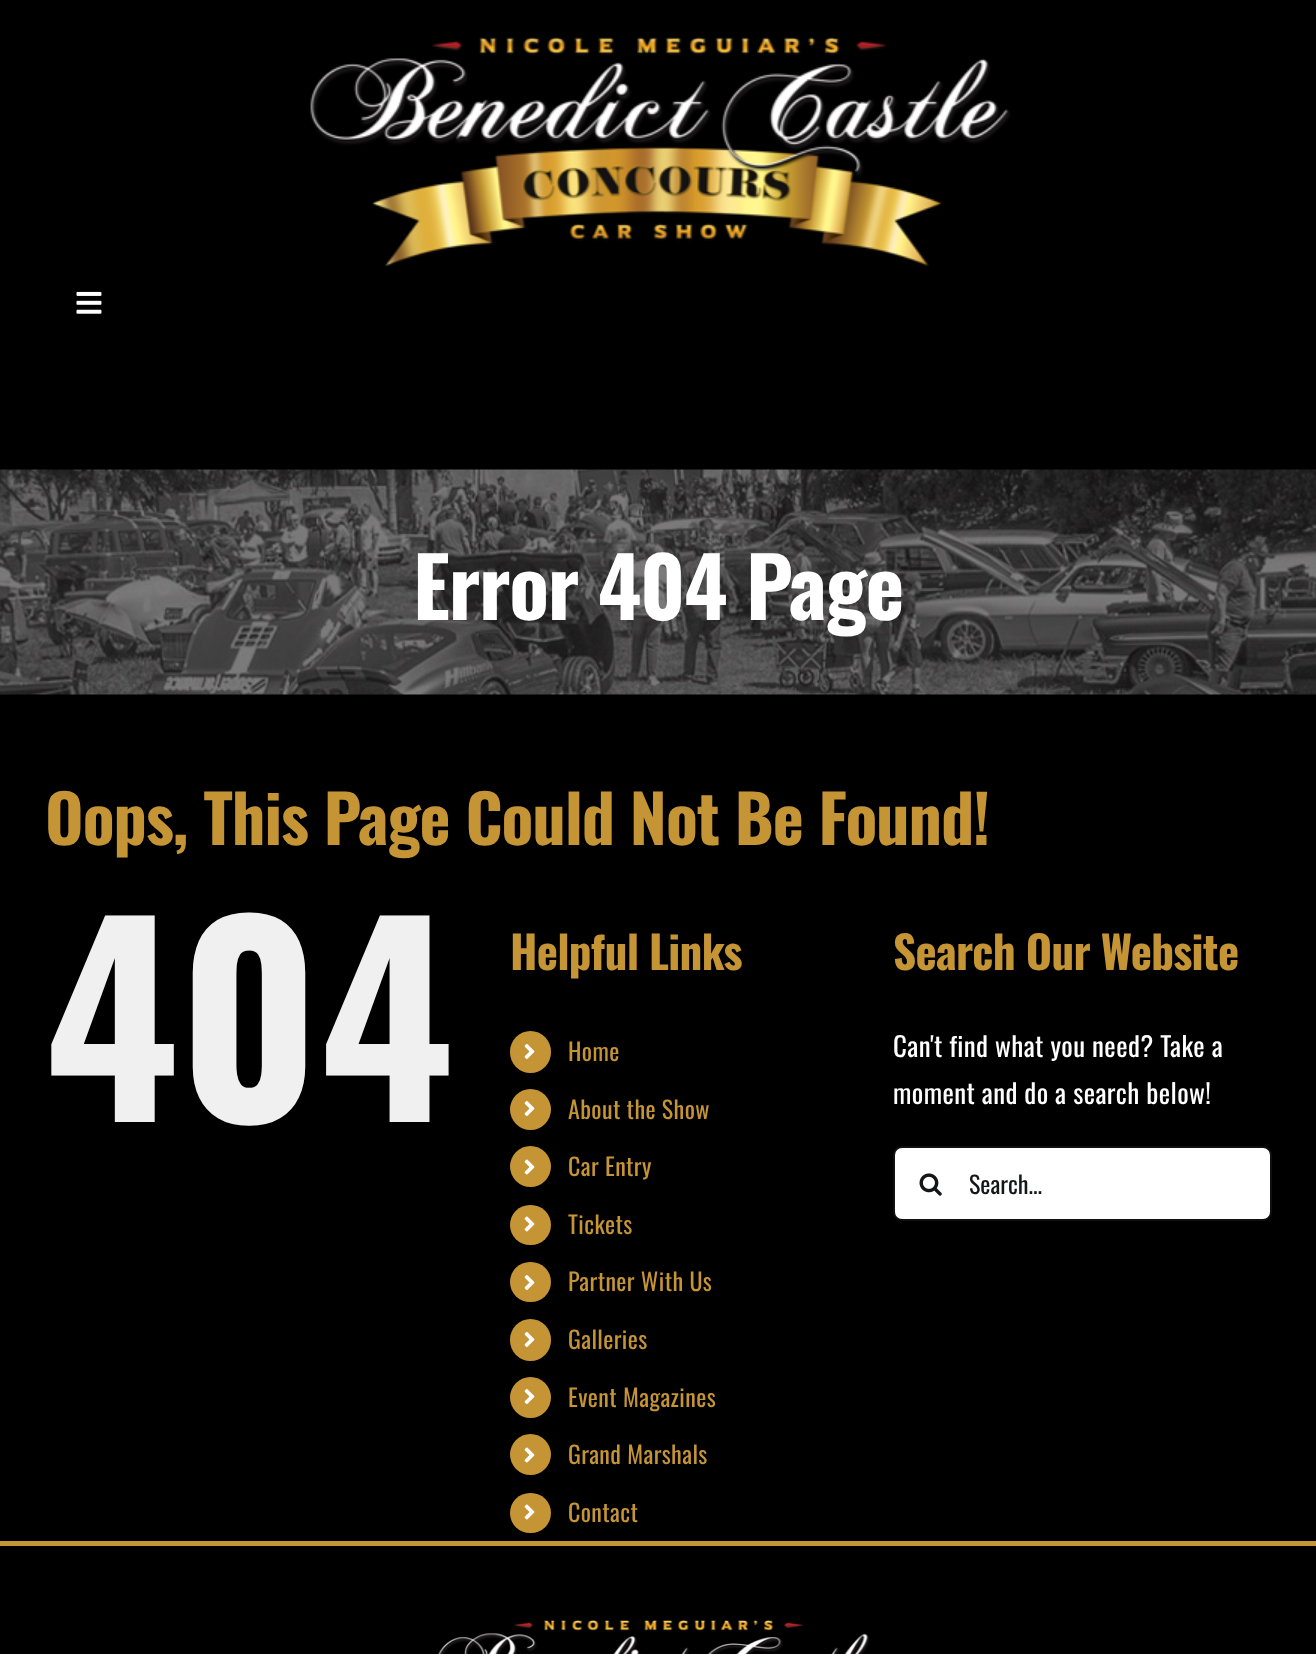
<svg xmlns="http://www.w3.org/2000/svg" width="1316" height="1654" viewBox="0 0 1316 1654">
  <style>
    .t1 { font: bold 82.5px Oswald; letter-spacing: -1.25px; fill: #fff; }
    .t2 { font: bold 66px Oswald; letter-spacing: -1px; fill: #c59435; }
    .t3 { font: bold 255px Oswald; letter-spacing: 0.4px; fill: #f0f0f0; }
    .t4 { font: bold 45px Oswald; letter-spacing: -0.7px; fill: #c59435; }
    .t5 { font: 24px Oswald; letter-spacing: 0.4px; fill: #c59435; }
    .t6 { font: 27px Oswald; letter-spacing: 0.4px; fill: #fff; }
    .t7 { font: 24px Oswald; fill: #141617; }
  </style>
  <rect width="100%" height="100%" fill="#000"/>
  <image x="310" y="37" width="701" height="230" href="images/1.png"/>
  <image x="76" y="291" width="26" height="23" href="images/2.png"/>
  <image x="0" y="469" width="1316" height="226" href="images/3.png"/>
  <text x="413" y="620" class="t1">Error 404 Page</text>
  <text x="45" y="845" class="t2">Oops, This Page Could Not Be Found!</text>
  <text x="45" y="1122" class="t3">404</text>
  <text x="510" y="970" class="t4">Helpful Links</text>
  <rect x="510" y="1031" width="41" height="42" rx="20.5" fill="#c59435"/>
  <image x="524" y="1044" width="11" height="15" href="images/4.png"/>
  <text x="568" y="1061" class="t5">Home</text>
  <circle cx="530.5" cy="1109.5" r="20.5" fill="#c59435"/>
  <image x="524" y="1101" width="11" height="15" href="images/4.png"/>
  <text x="568" y="1119" class="t5">About the Show</text>
  <circle cx="530.5" cy="1166.5" r="20.5" fill="#c59435"/>
  <image x="524" y="1159" width="11" height="16" href="images/5.png"/>
  <text x="568" y="1176" class="t5">Car Entry</text>
  <rect x="510" y="1205" width="41" height="40" rx="20" fill="#c59435"/>
  <image x="524" y="1216" width="11" height="16" href="images/5.png"/>
  <text x="568" y="1234" class="t5">Tickets</text>
  <rect x="510" y="1262" width="41" height="40" rx="20" fill="#c59435"/>
  <image x="524" y="1275" width="11" height="15" href="images/4.png"/>
  <text x="568" y="1291" class="t5">Partner With Us</text>
  <rect x="510" y="1319" width="41" height="42" rx="20.5" fill="#c59435"/>
  <image x="524" y="1332" width="11" height="15" href="images/4.png"/>
  <text x="568" y="1349" class="t5">Galleries</text>
  <circle cx="530.5" cy="1397.5" r="20.5" fill="#c59435"/>
  <image x="524" y="1389" width="11" height="15" href="images/4.png"/>
  <text x="568" y="1407" class="t5">Event Magazines</text>
  <circle cx="530.5" cy="1454.5" r="20.5" fill="#c59435"/>
  <image x="524" y="1447" width="11" height="16" href="images/5.png"/>
  <text x="568" y="1464" class="t5">Grand Marshals</text>
  <rect x="510" y="1493" width="41" height="40" rx="20" fill="#c59435"/>
  <image x="524" y="1504" width="11" height="16" href="images/5.png"/>
  <text x="568" y="1522" class="t5">Contact</text>
  <text x="893" y="970" class="t4">Search Our Website</text>
  <text x="893" y="1057" class="t6">Can't find what you need? Take a</text>
  <text x="893" y="1104" class="t6">moment and do a search below!</text>
  <rect x="894" y="1147" width="377" height="73" rx="8" fill="#fff" stroke="#110f0f" stroke-width="2"/>
  <image x="919" y="1173" width="23" height="23" href="images/6.png"/>
  <text x="969" y="1194" class="t7">Search...</text>
  <rect x="0" y="1541" width="1316" height="5" fill="#c59435"/>
  <image x="438" y="1620" width="432" height="34" href="images/7.png"/>
</svg>
